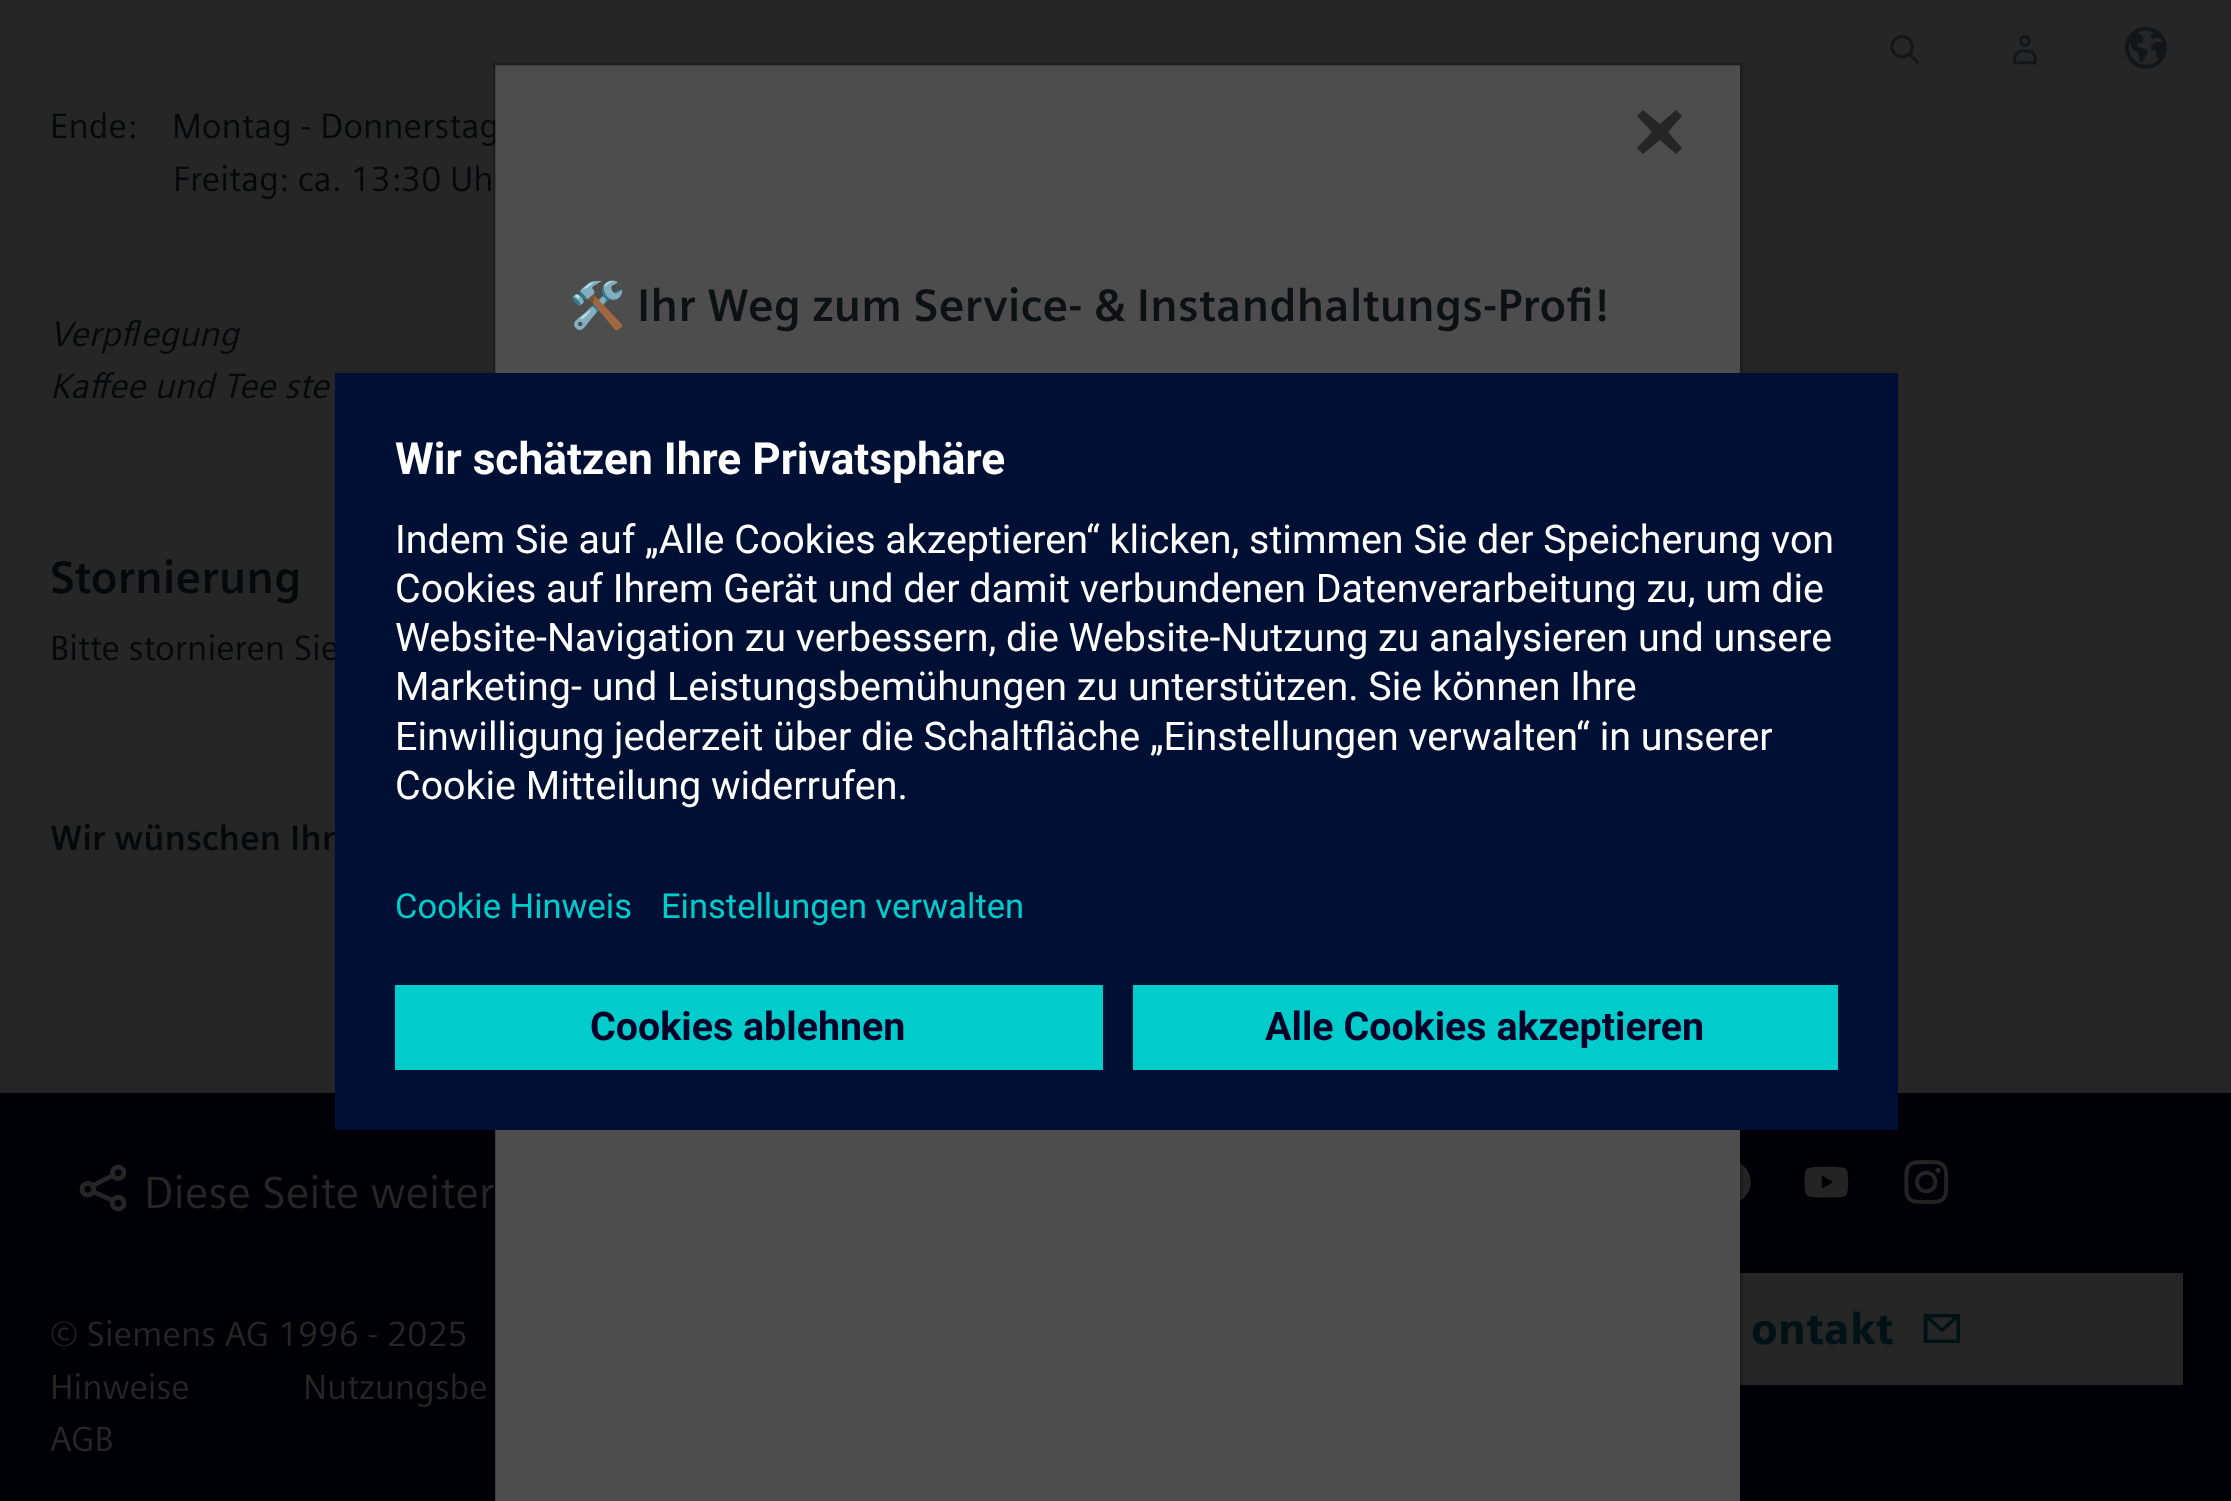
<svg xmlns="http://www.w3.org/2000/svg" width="2231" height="1501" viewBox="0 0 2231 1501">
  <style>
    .t1 { font: 35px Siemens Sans; fill: #070809; }
    .t2 { font: italic 35px Siemens Sans; fill: #070809; }
    .t3 { font: bold 45.5px Siemens Sans; fill: #070809; }
    .t4 { font: bold 35px Siemens Sans; fill: #070809; }
    .t5 { font: 45px Siemens Sans; fill: #262626; }
    .t6 { font: 45.5px Noto Color Emoji; fill: #0e1112; }
    .t7 { font: bold 45.5px Siemens Sans; fill: #0e1112; }
    .t8 { font: bold 44.25px Roboto; fill: #fff; }
    .t9 { font: 39.4px Roboto; fill: #fff; }
    .t10 { font: 34.5px Roboto; fill: #0cc; }
    .t11 { font: bold 39.4px Roboto; fill: #000028; }
    .t12 { font: 35px Siemens Sans; fill: #262626; }
    .t13 { font: 900 44px Siemens Sans; fill: #001216; }
  </style>
  <rect width="100%" height="100%" fill="#262626"/>
  <image x="1890" y="35" width="30" height="30" href="images/1.png"/>
  <image x="2013" y="35" width="24" height="30" href="images/2.png"/>
  <image x="2125" y="26" width="42" height="43" href="images/3.png"/>
  <text x="50" y="138" class="t1" xml:space="preserve">Ende:    Montag - Donnerstag</text>
  <text x="173" y="191" class="t1">Freitag: ca. 13:30 Uh</text>
  <text x="50" y="346" class="t2">Verpflegung</text>
  <text x="50" y="398" class="t2">Kaffee und Tee ste</text>
  <text x="50" y="593" class="t3">Stornierung</text>
  <text x="50" y="660" class="t1">Bitte stornieren Sie</text>
  <text x="50" y="850" class="t4">Wir wünschen Ihn</text>
  <rect x="0" y="1093" width="2231" height="408" fill="#000006"/>
  <rect x="495" y="65" width="1245" height="1436" fill="#4d4d4d"/>
  <text x="144" y="1208" class="t5">Diese Seite weiter</text>
  <image x="1740" y="1163" width="11" height="38" href="images/5.png"/>
  <rect x="1740" y="1273" width="443" height="112" fill="#262626"/>
  <rect x="494.5" y="64.5" width="1247" height="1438" fill="none" stroke="#00000033" stroke-width="3"/>
  <path d="M1676 154L1682 148L1668 132L1682 116L1676 110L1660 124L1643 110L1637 116L1652 132L1637 148L1643 154L1660 140Z" fill="#262626"/>
  <text x="569" y="321" class="t6">🛠️</text>
  <text x="637" y="321" class="t7">Ihr Weg zum Service- &amp; Instandhaltungs-Profi!</text>
  <rect x="335" y="373" width="1563" height="757" fill="#001034"/>
  <text x="395" y="474" class="t8">Wir schätzen Ihre Privatsphäre</text>
  <text x="395" y="553" class="t9">Indem Sie auf „Alle Cookies akzeptieren“ klicken, stimmen Sie der Speicherung von</text>
  <text x="395" y="602" class="t9">Cookies auf Ihrem Gerät und der damit verbundenen Datenverarbeitung zu, um die</text>
  <text x="395" y="651" class="t9">Website-Navigation zu verbessern, die Website-Nutzung zu analysieren und unsere</text>
  <text x="395" y="700" class="t9">Marketing- und Leistungsbemühungen zu unterstützen. Sie können Ihre</text>
  <text x="395" y="750" class="t9">Einwilligung jederzeit über die Schaltfläche „Einstellungen verwalten“ in unserer</text>
  <text x="395" y="799" class="t9">Cookie Mitteilung widerrufen.</text>
  <text x="395" y="918" class="t10">Cookie Hinweis</text>
  <text x="661" y="918" class="t10">Einstellungen verwalten</text>
  <rect x="395" y="985" width="708" height="85" fill="#0cc"/>
  <text x="590" y="1040" class="t11">Cookies ablehnen</text>
  <rect x="1133" y="985" width="705" height="85" fill="#0cc"/>
  <text x="1265" y="1040" class="t11">Alle Cookies akzeptieren</text>
  <image x="79" y="1164" width="48" height="48" href="images/4.png"/>
  <image x="1804" y="1166" width="45" height="32" href="images/6.png"/>
  <image x="1904" y="1160" width="45" height="44" href="images/7.png"/>
  <text x="50" y="1346" class="t12">© Siemens AG 1996 - 2025</text>
  <text x="50" y="1399" class="t12">Hinweise</text>
  <text x="303" y="1399" class="t12">Nutzungsbe</text>
  <text x="50" y="1451" class="t12">AGB</text>
  <text x="1751" y="1344" class="t13">ontakt</text>
  <path d="M1923.5 1314V1343H1960V1314ZM1953.5 1317.5L1942 1328L1930.5 1317.5ZM1927.5 1339.5V1319.5L1942 1332.5L1956.5 1319.5V1339.5Z" fill="#001216"/>
</svg>
